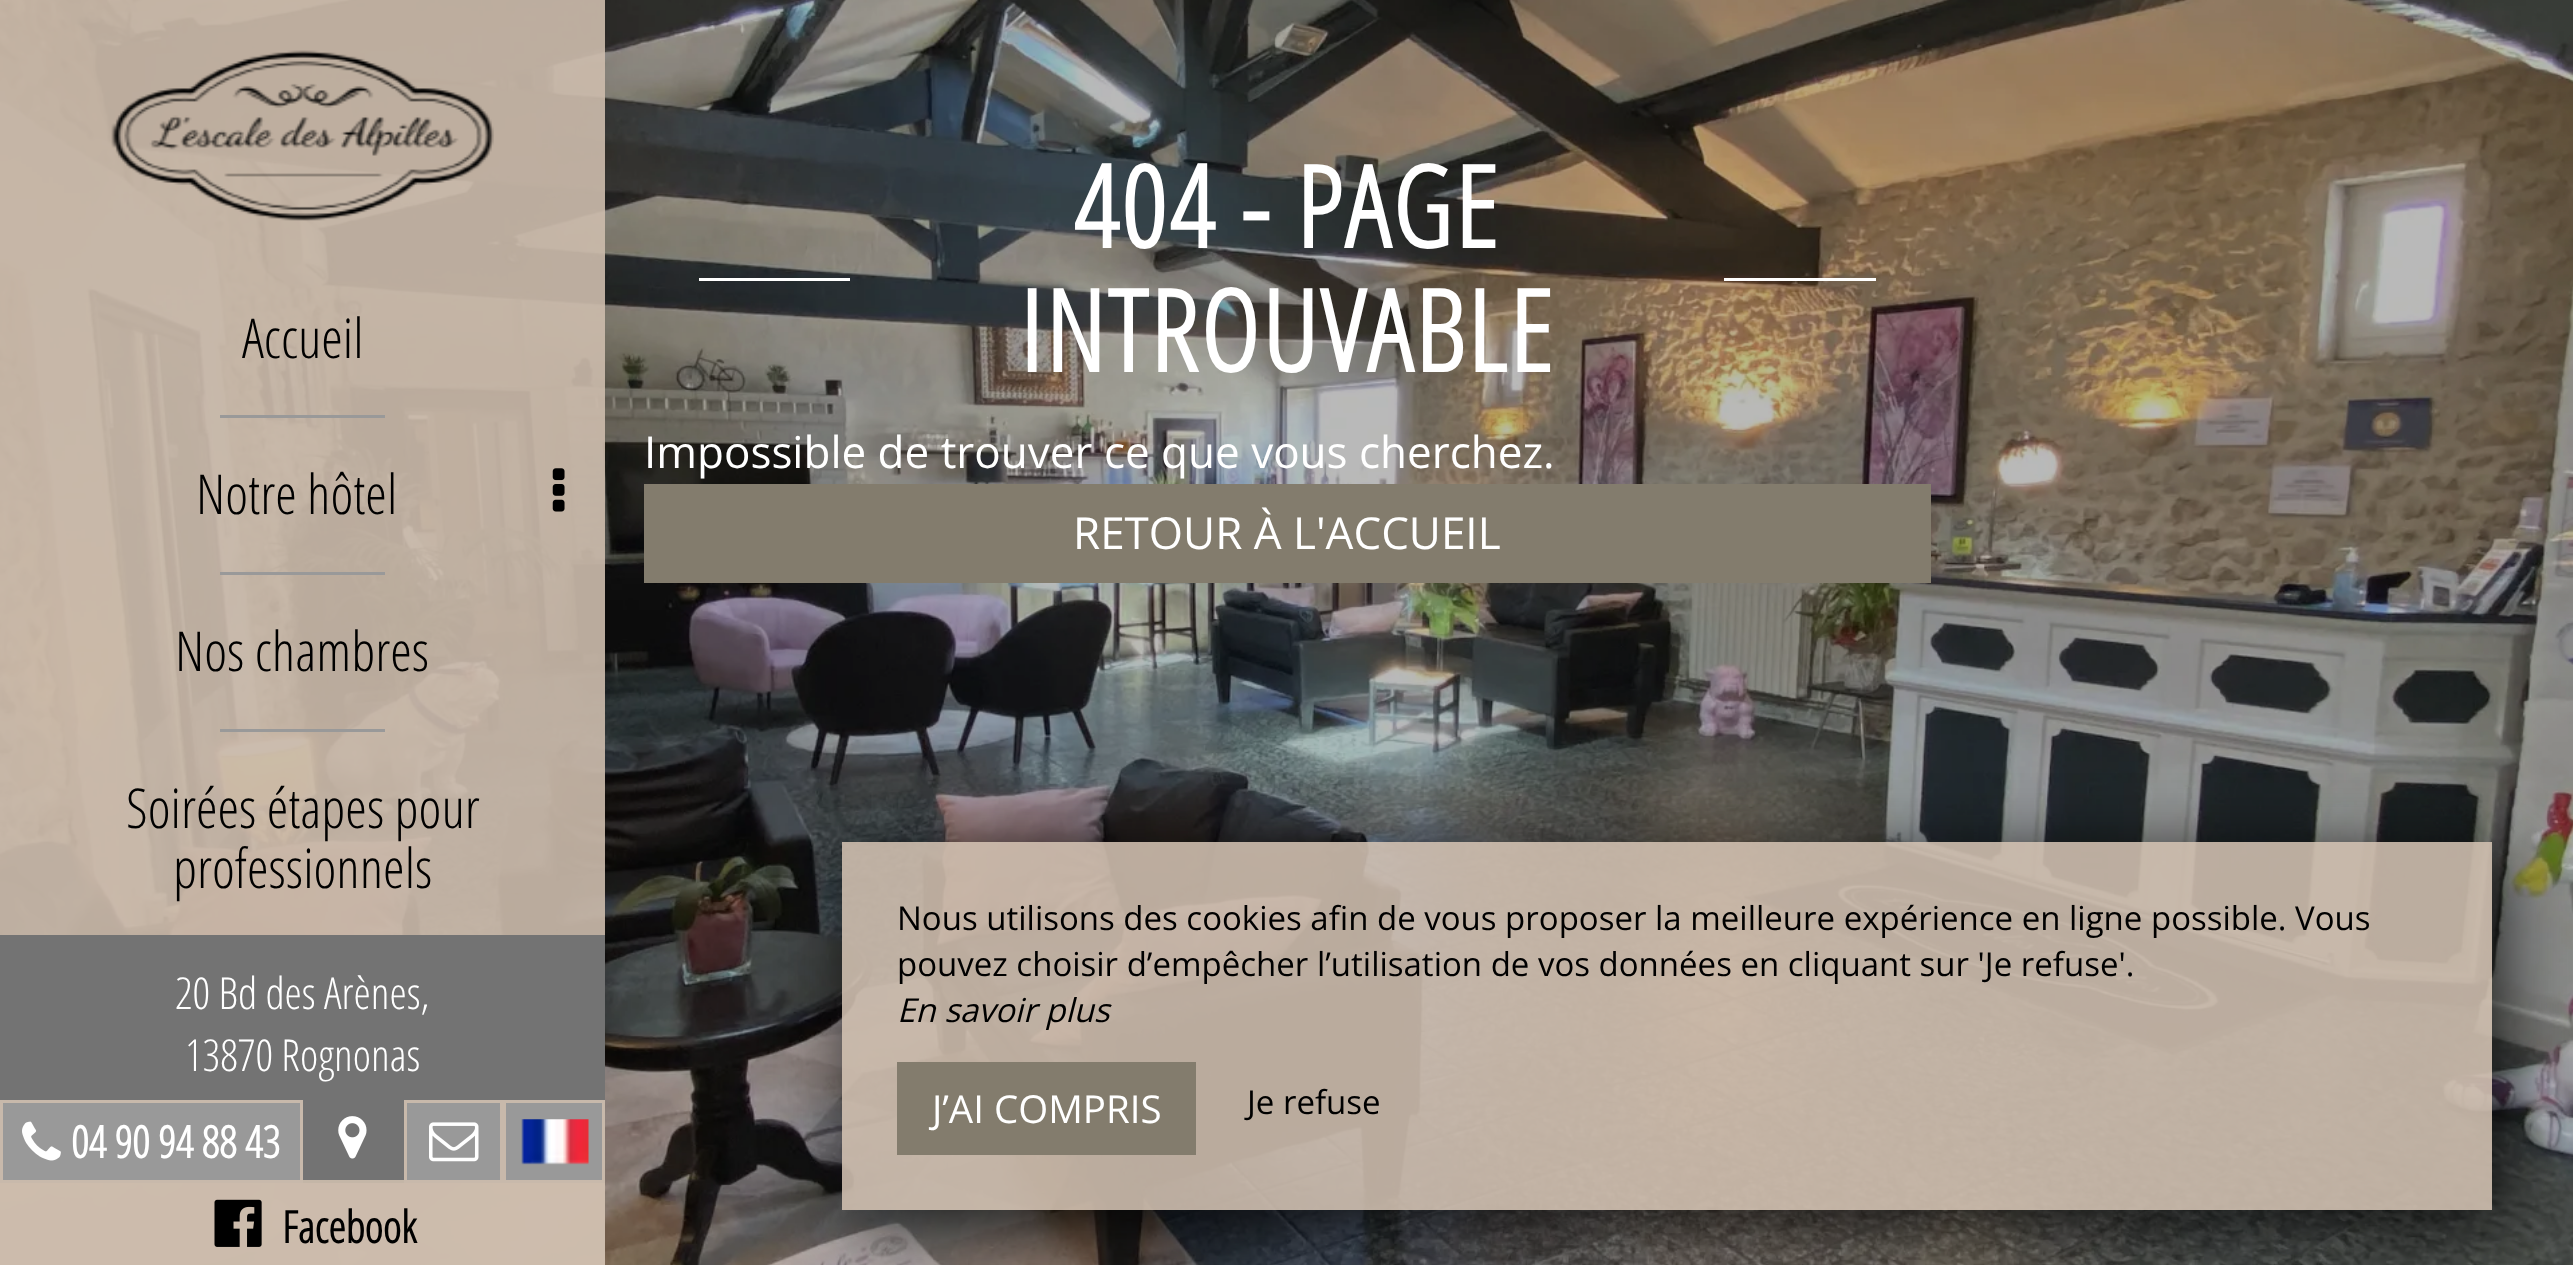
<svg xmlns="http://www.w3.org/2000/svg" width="2573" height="1265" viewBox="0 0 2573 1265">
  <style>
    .t1 { font: 300 55px Open Sans Condensed; fill: #000; }
    .t2 { font: 300 44px Open Sans Condensed; fill: #fff; }
    .t3 { font: bold 44px Open Sans Condensed; fill: #fff; }
    .t4 { font: bold 44px Open Sans Condensed; fill: #000; }
    .t5 { font: bold 112.75px Open Sans Condensed; letter-spacing: 2.75px; fill: #fff; }
    .t6 { font: 44px Open Sans; fill: #fff; }
    .t7 { font: 33px Open Sans; fill: #000; }
    .t8 { font: italic 33px Open Sans; fill: #000; }
    .t9 { font: 38.5px Open Sans; fill: #fff; }
  </style>
  <defs>
    <clipPath id="clip1"><path d="M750 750H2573V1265H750ZM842 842H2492V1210H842Z" clip-rule="evenodd"/></clipPath>
  </defs>
  <rect width="100%" height="100%" fill="#fff"/>
  <image x="0" y="0" width="2573" height="1265" href="images/8.png"/>
  <rect x="0" y="0" width="605" height="1265" fill="#cdbdade6"/>
  <image x="111" y="50" width="383" height="171" href="images/1.png"/>
  <text x="242" y="358" class="t1">Accueil</text>
  <rect x="220" y="415" width="165" height="3" fill="#999"/>
  <text x="196" y="514" class="t1">Notre hôtel</text>
  <image x="552" y="468" width="13" height="44" href="images/2.png"/>
  <rect x="220" y="572" width="165" height="3" fill="#999"/>
  <text x="175" y="671" class="t1">Nos chambres</text>
  <rect x="220" y="729" width="165" height="3" fill="#999"/>
  <text x="126" y="828" class="t1">Soirées étapes pour</text>
  <text x="173" y="888" class="t1">professionnels</text>
  <rect x="0" y="935" width="605" height="165" fill="#737373"/>
  <text x="175" y="1009" class="t2">20 Bd des Arènes,</text>
  <text x="185" y="1071" class="t2">13870 Rognonas</text>
  <rect x="1.5" y="1101.5" width="300" height="80" fill="#999" stroke="#c8b9ab" stroke-width="3"/>
  <image x="22" y="1121" width="39" height="40" href="images/3.png"/>
  <text x="71" y="1158" class="t3">04 90 94 88 43</text>
  <rect x="303" y="1100" width="101" height="80" fill="#737373"/>
  <rect x="303" y="1180" width="101" height="3" fill="#c4b6a7"/>
  <image x="338" y="1116" width="29" height="43" href="images/4.png"/>
  <rect x="405.5" y="1101.5" width="96" height="80" fill="#999" stroke="#c8b9ab" stroke-width="3"/>
  <image x="429" y="1122" width="50" height="40" href="images/5.png"/>
  <rect x="504.5" y="1101.5" width="99" height="80" fill="#999" stroke="#c8b9ab" stroke-width="3"/>
  <image x="521" y="1119" width="68" height="46" href="images/6.png"/>
  <rect x="0" y="1183" width="605" height="82" fill="#cdbdade6"/>
  <image x="214" y="1199" width="48" height="48" href="images/7.png"/>
  <text x="282" y="1243" class="t4">Facebook</text>
  <text x="1073" y="248" class="t5">404 - PAGE</text>
  <rect x="699" y="278" width="151" height="3" fill="#fff"/>
  <rect x="1724" y="278" width="152" height="3" fill="#fff"/>
  <text x="1019" y="372" class="t5">INTROUVABLE</text>
  <text x="644" y="468" class="t6">Impossible de trouver ce que vous cherchez.</text>
  <rect x="644" y="484" width="1287" height="99" fill="#837c6d"/>
  <text x="1073" y="549" class="t6">RETOUR À L'ACCUEIL</text>
  <g clip-path="url(#clip1)">
    <rect x="855" y="855" width="1650" height="369" fill="#000000cc" filter="blur(34.5px)"/>
  </g>
  <rect x="842" y="842" width="1650" height="368" fill="#cdbdade6"/>
  <text x="897" y="930" class="t7">Nous utilisons des cookies afin de vous proposer la meilleure expérience en ligne possible. Vous</text>
  <text x="897" y="976" class="t7">pouvez choisir d’empêcher l’utilisation de vos données en cliquant sur 'Je refuse'.</text>
  <text x="897" y="1022" class="t8">En savoir plus</text>
  <rect x="897" y="1062" width="299" height="93" fill="#837c6d"/>
  <text x="932" y="1123" class="t9">J’AI COMPRIS</text>
  <text x="1247" y="1114" class="t7">Je refuse</text>
</svg>
